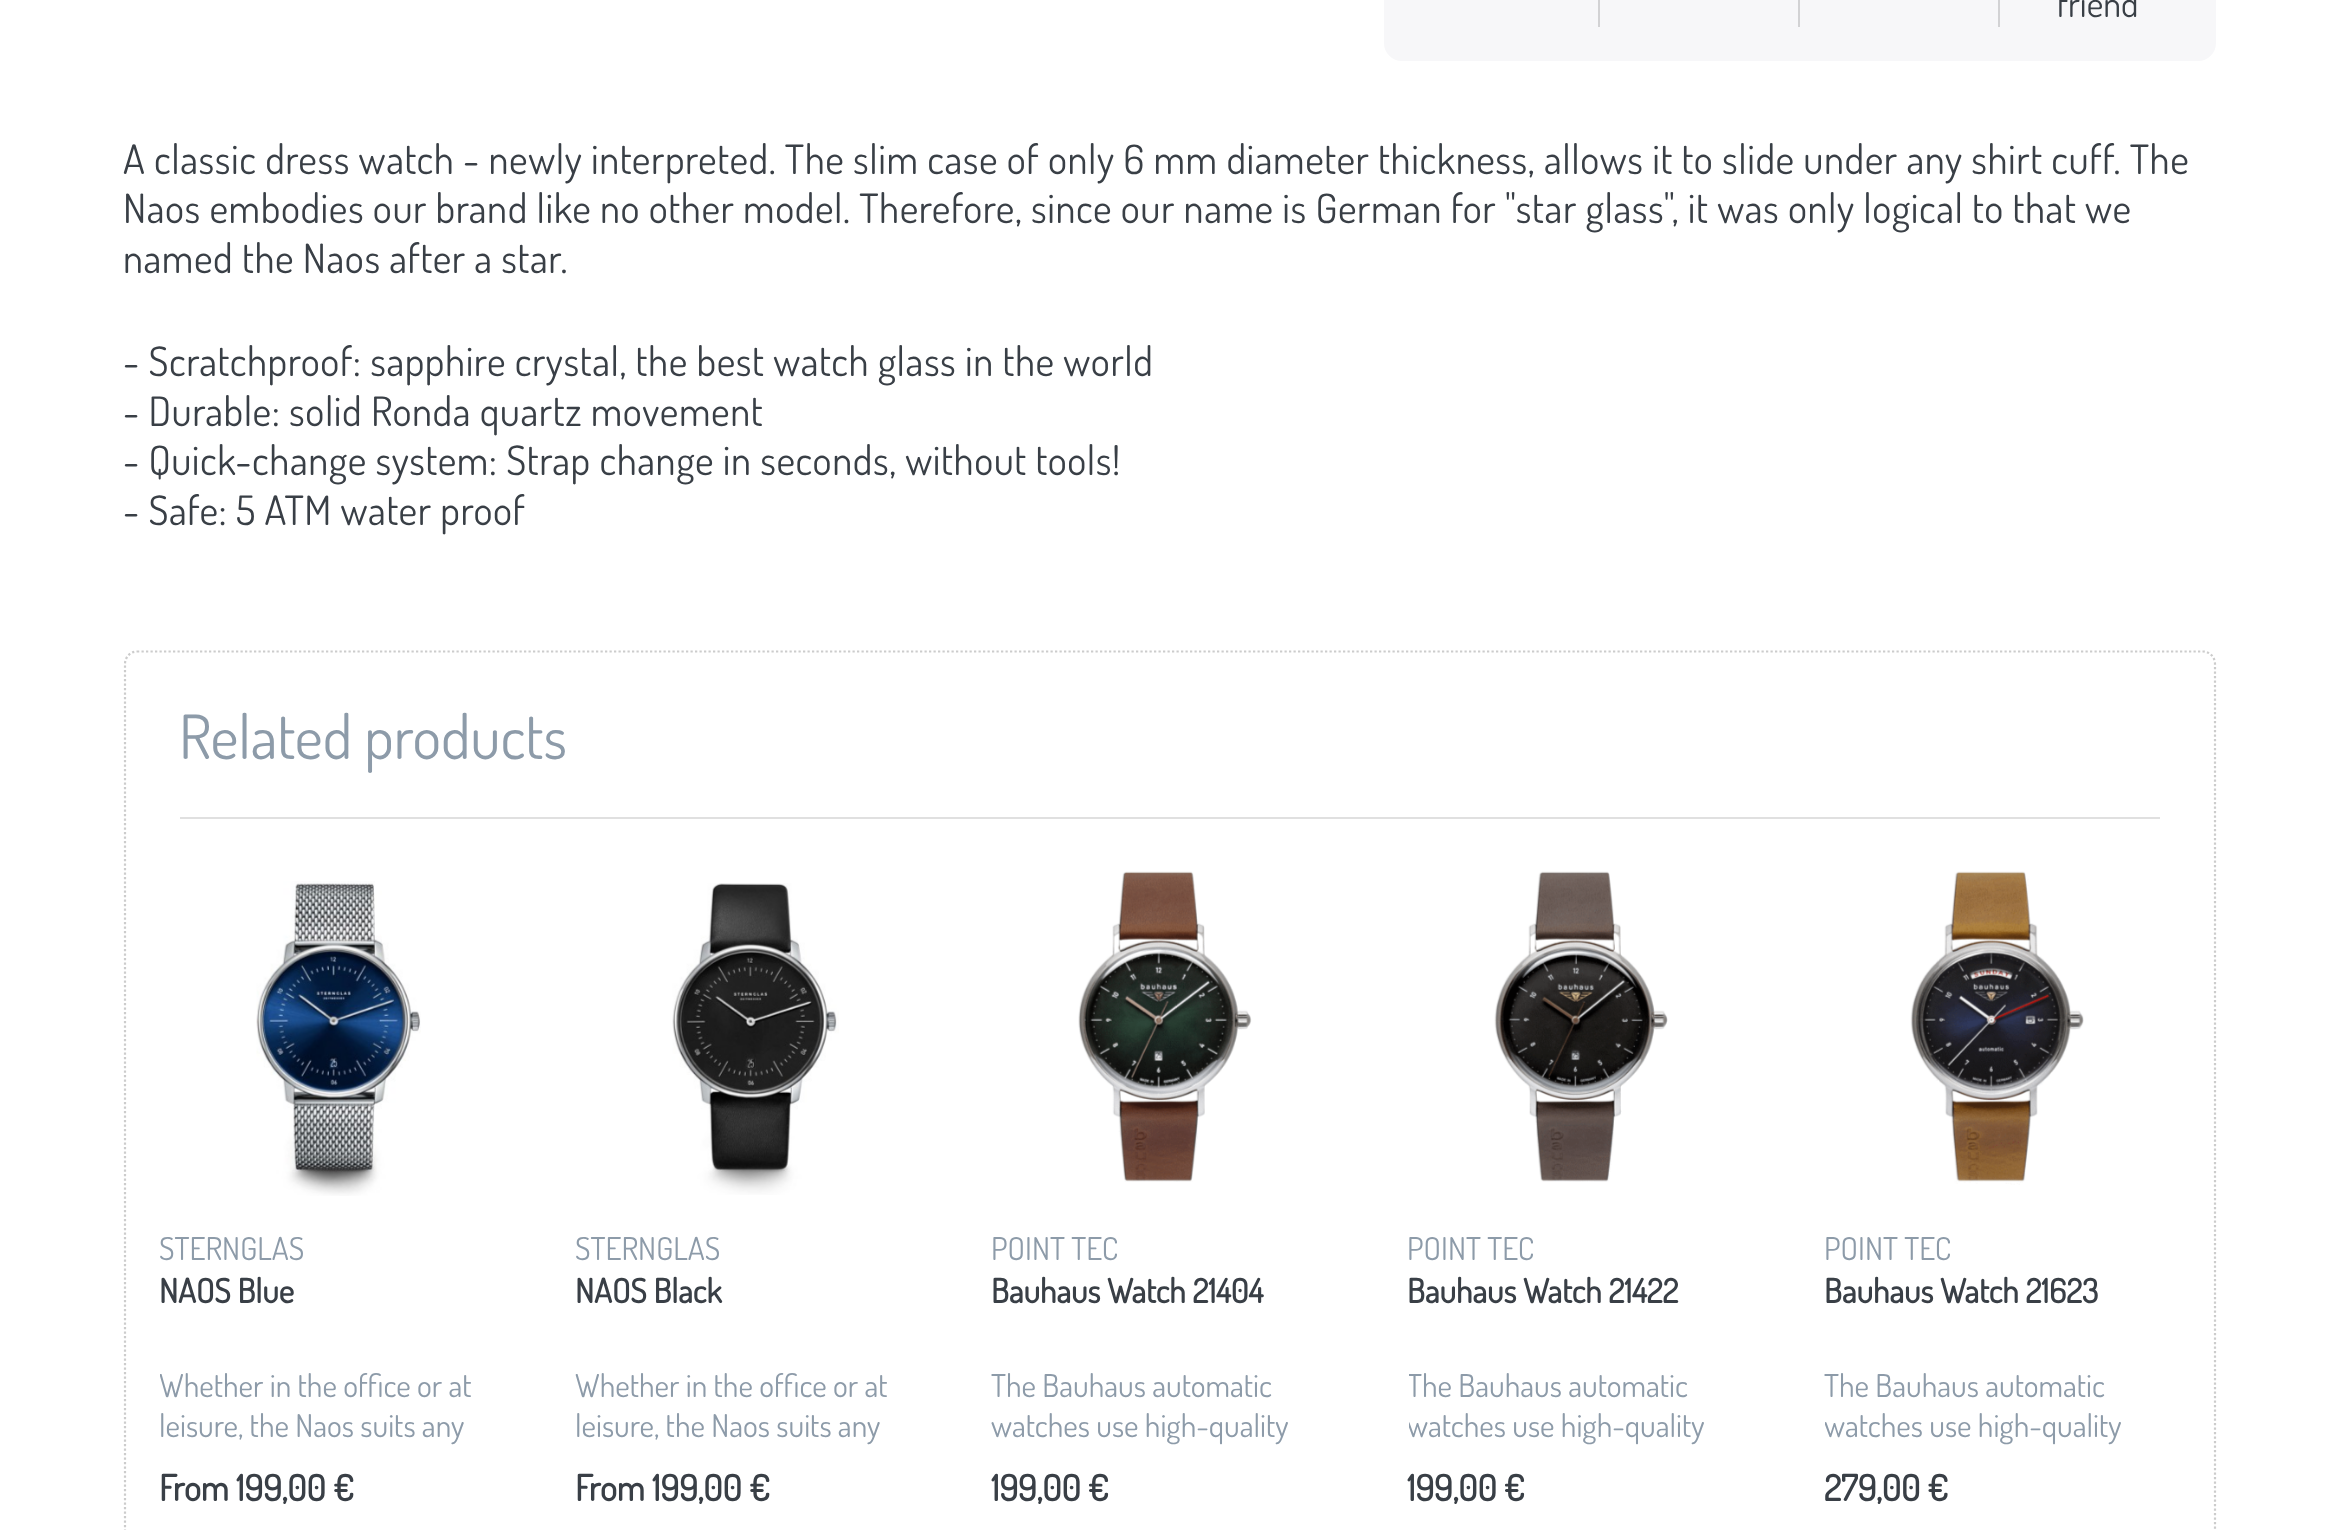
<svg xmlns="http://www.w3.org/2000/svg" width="2337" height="1530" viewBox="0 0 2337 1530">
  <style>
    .t1 { font: 36px Dosis; fill: #393f46; }
    .t2 { font: 40.5px Dosis; letter-spacing: 0.56px; fill: #393f46; }
    .t3 { font: 60.75px Dosis; fill: #8d9ba9; }
    .t4 { font: 31.5px Dosis; fill: #8d9ba9; }
    .t5 { font: bold 33.25px Dosis; fill: #393f46; }
    .t6 { font: bold 36px Dosis; fill: #393f46; }
  </style>
  <defs>
    <clipPath id="clip1"><rect x="160" y="1366" width="346" height="81"/></clipPath>
    <clipPath id="clip2"><rect x="1409" y="1366" width="346" height="81"/></clipPath>
    <clipPath id="clip3"><rect x="1825" y="1366" width="346" height="81"/></clipPath>
  </defs>
  <rect width="100%" height="100%" fill="#fff"/>
  <rect x="1384" y="-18" width="832" height="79" rx="18" fill="#f7f7f9"/>
  <rect x="1598" y="0" width="2" height="27" fill="#d2d2d4"/>
  <rect x="1798" y="0" width="2" height="27" fill="#d2d2d4"/>
  <rect x="1998" y="0" width="2" height="27" fill="#d2d2d4"/>
  <text x="2057" y="17" class="t1">friend</text>
  <text x="123" y="174" class="t2">A classic dress watch - newly interpreted. The slim case of only 6 mm diameter thickness, allows it to slide under any shirt cuff. The</text>
  <text x="123" y="223" class="t2">Naos embodies our brand like no other model. Therefore, since our name is German for "star glass", it was only logical to that we</text>
  <text x="123" y="273" class="t2">named the Naos after a star.</text>
  <text x="123" y="376" class="t2">- Scratchproof: sapphire crystal, the best watch glass in the world</text>
  <text x="123" y="426" class="t2">- Durable: solid Ronda quartz movement</text>
  <text x="123" y="475" class="t2">- Quick-change system: Strap change in seconds, without tools!</text>
  <text x="123" y="525" class="t2">- Safe: 5 ATM water proof</text>
  <path d="M137 651.5H2203C2209.5 651.5 2215 657 2215 664V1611C2215 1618 2209.5 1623.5 2203 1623.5H137C130.5 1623.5 125 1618 125 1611V664C125 657 130.5 651.5 137 651.5Z" fill="none" stroke="#ccc" stroke-width="2.2" stroke-dasharray="2.25 2.25"/>
  <rect x="180" y="817" width="1980" height="2" fill="#e0e0e0"/>
  <text x="179" y="759" class="t3">Related products</text>
  <image x="256" y="881" width="165" height="315" href="images/1.png"/>
  <text x="159" y="1260" class="t4">STERNGLAS</text>
  <text x="159" y="1303" class="t5">NAOS Blue</text>
  <g clip-path="url(#clip1)">
    <text x="159" y="1397" class="t4">Whether in the office or at</text>
  </g>
  <text x="159" y="1437" class="t4">leisure, the Naos suits any</text>
  <text x="159" y="1501" class="t6">From 199,00 €</text>
  <image x="672" y="883" width="167" height="312" href="images/2.png"/>
  <text x="575" y="1260" class="t4">STERNGLAS</text>
  <text x="575" y="1303" class="t5">NAOS Black</text>
  <text x="575" y="1397" class="t4">Whether in the office or at</text>
  <text x="575" y="1437" class="t4">leisure, the Naos suits any</text>
  <text x="575" y="1501" class="t6">From 199,00 €</text>
  <image x="1078" y="871" width="174" height="311" href="images/3.png"/>
  <text x="991" y="1260" class="t4">POINT TEC</text>
  <text x="991" y="1303" class="t5">Bauhaus Watch 21404</text>
  <text x="991" y="1397" class="t4">The Bauhaus automatic</text>
  <text x="991" y="1437" class="t4">watches use high-quality</text>
  <text x="991" y="1501" class="t6">199,00 €</text>
  <image x="1494" y="871" width="174" height="311" href="images/4.png"/>
  <text x="1407" y="1260" class="t4">POINT TEC</text>
  <text x="1407" y="1303" class="t5">Bauhaus Watch 21422</text>
  <g clip-path="url(#clip2)">
    <text x="1407" y="1397" class="t4">The Bauhaus automatic</text>
    <text x="1407" y="1437" class="t4">watches use high-quality</text>
  </g>
  <text x="1407" y="1501" class="t6">199,00 €</text>
  <image x="1910" y="871" width="174" height="314" href="images/5.png"/>
  <text x="1824" y="1260" class="t4">POINT TEC</text>
  <text x="1824" y="1303" class="t5">Bauhaus Watch 21623</text>
  <text x="1824" y="1397" class="t4">The Bauhaus automatic</text>
  <g clip-path="url(#clip3)">
    <text x="1824" y="1437" class="t4">watches use high-quality</text>
  </g>
  <text x="1824" y="1501" class="t6">279,00 €</text>
</svg>
